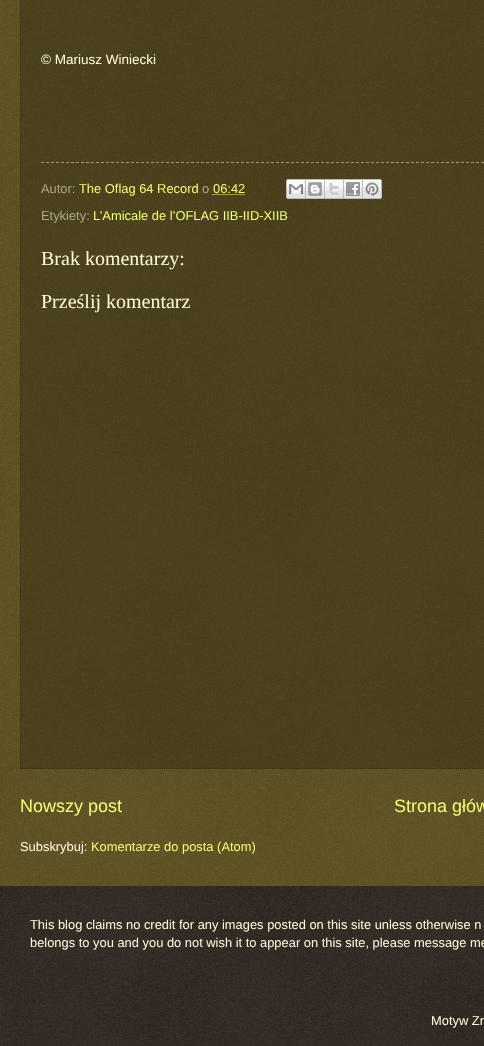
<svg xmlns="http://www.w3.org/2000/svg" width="484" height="1046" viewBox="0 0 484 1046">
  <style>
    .t1 { font: 13.5px Liberation Sans; fill: #fffedd; }
    .t2 { font: 12.9px Liberation Sans; fill: #aaa988; }
    .t3 { font: 12.9px Liberation Sans; fill: #f0ff77; }
    .t4 { font: 20px Liberation Serif; fill: #fffedd; }
    .t5 { font: 18px Liberation Sans; fill: #f0ff77; }
    .t6 { font: 12.9px Liberation Sans; fill: #fffedd; }
  </style>
  <rect width="100%" height="100%" fill="#443500"/>
  <image x="0" y="0" width="484" height="886" href="images/1.png"/>
  <rect x="20" y="0" width="464" height="769" fill="#00000033"/>
  <path d="M20 768.5H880" fill="none" stroke="#333211" stroke-dasharray="1 1"/>
  <path d="M20.5-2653V769" fill="none" stroke="#333211" stroke-dasharray="1 1"/>
  <text x="41" y="64" class="t1">© Mariusz Winiecki</text>
  <path d="M41 162.5H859" fill="none" stroke="#999877" stroke-dasharray="3 2"/>
  <text x="41" y="193" class="t2">Autor:</text>
  <text x="79" y="193" class="t3">The Oflag 64 Record</text>
  <text x="202" y="193" class="t2">o</text>
  <text x="213" y="193" class="t3">06:42</text>
  <path d="M212.5 194.5H245" fill="none" stroke="#f0ff77" stroke-dasharray="1 1"/>
  <image x="286" y="179" width="20" height="20" href="images/2.png"/>
  <image x="306" y="179" width="19" height="20" href="images/3.png"/>
  <image x="325" y="179" width="19" height="20" href="images/4.png"/>
  <image x="344" y="179" width="19" height="20" href="images/5.png"/>
  <image x="363" y="179" width="19" height="20" href="images/6.png"/>
  <text x="41" y="220" class="t2">Etykiety:</text>
  <text x="93" y="220" class="t3">L’Amicale de l’OFLAG IIB-IID-XIIB</text>
  <text x="41" y="265" class="t4">Brak komentarzy:</text>
  <text x="41" y="308" class="t4">Prześlij komentarz</text>
  <text x="20" y="812" class="t5">Nowszy post</text>
  <text x="394" y="812" class="t5">Strona głów</text>
  <text x="20" y="851" class="t6">Subskrybuj:</text>
  <text x="91" y="851" class="t3">Komentarze do posta (Atom)</text>
  <rect x="0" y="886" width="484" height="160" fill="#110800"/>
  <image x="0" y="886" width="484" height="160" href="images/7.png"/>
  <text x="30" y="929" class="t6">This blog claims no credit for any images posted on this site unless otherwise n</text>
  <text x="30" y="947" class="t6">belongs to you and you do not wish it to appear on this site, please message me</text>
  <text x="431" y="1025" class="t6">Motyw Zn</text>
</svg>
